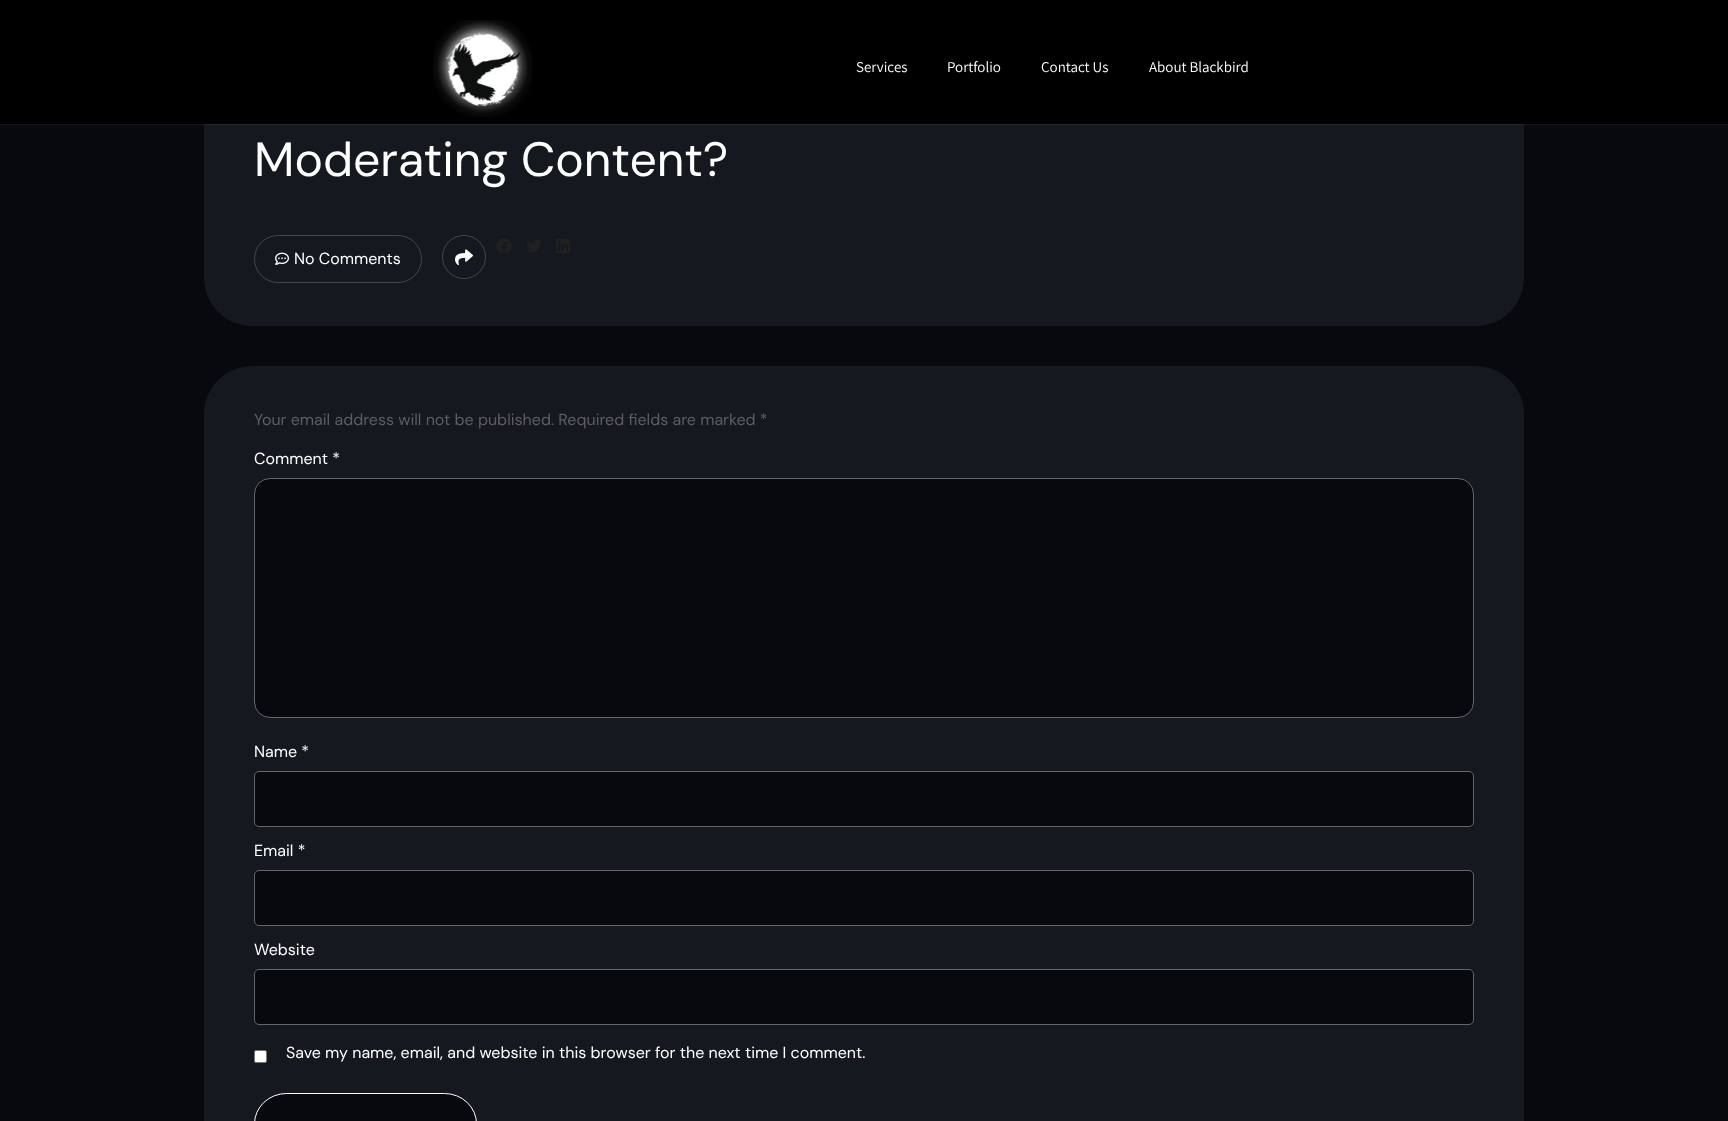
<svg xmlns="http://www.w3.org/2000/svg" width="1728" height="1121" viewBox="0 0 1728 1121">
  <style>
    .t1 { font: 15px Assistant; fill: #fff; }
    .t2 { font: 48px DM Sans; fill: #fff; }
    .t3 { font: 16px DM Sans; fill: #fff; }
    .t4 { font: 16px DM Sans; fill: #5c5e62; }
  </style>
  <rect width="100%" height="100%" fill="#07090d"/>
  <rect x="204" y="-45" width="1320" height="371" rx="48" fill="#16181f"/>
  <rect x="-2" y="-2" width="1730" height="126" fill="#ffffff2e" filter="blur(1px)"/>
  <rect x="0" y="0" width="1728" height="124" fill="#000"/>
  <image x="433" y="20" width="99" height="97" href="images/1.png"/>
  <text x="856" y="72" class="t1">Services</text>
  <text x="947" y="72" class="t1">Portfolio</text>
  <text x="1041" y="72" class="t1">Contact Us</text>
  <text x="1149" y="72" class="t1">About Blackbird</text>
  <text x="254" y="176" class="t2">Moderating Content?</text>
  <circle cx="464" cy="257" r="21.5" fill="none" stroke="#45464c"/>
  <image x="455" y="249" width="18" height="17" href="images/2.png"/>
  <image x="496" y="238" width="16" height="16" href="images/3.png"/>
  <image x="527" y="239" width="15" height="14" href="images/4.png"/>
  <image x="556" y="239" width="14" height="14" href="images/5.png"/>
  <rect x="254.5" y="235.5" width="167" height="47" rx="23.5" fill="none" stroke="#45464c"/>
  <image x="275" y="252" width="14" height="13" href="images/6.png"/>
  <text x="294" y="264" class="t3">No Comments</text>
  <rect x="204" y="366" width="1320" height="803" rx="48" fill="#16181f"/>
  <text x="254" y="425" class="t4">Your email address will not be published. Required fields are marked *</text>
  <text x="254" y="464" class="t3">Comment *</text>
  <rect x="254.5" y="478.5" width="1219" height="239" rx="15.5" fill="#07090d" stroke="#666"/>
  <text x="254" y="757" class="t3">Name *</text>
  <rect x="254.5" y="771.5" width="1219" height="55" rx="4.5" fill="#07090d" stroke="#666"/>
  <text x="254" y="856" class="t3">Email *</text>
  <rect x="254.5" y="870.5" width="1219" height="55" rx="4.5" fill="#07090d" stroke="#666"/>
  <text x="254" y="955" class="t3">Website</text>
  <rect x="254.5" y="969.5" width="1219" height="55" rx="4.5" fill="#07090d" stroke="#666"/>
  <rect x="254.5" y="1050.5" width="12" height="12" rx="1.5" fill="#fff" stroke="#767676"/>
  <text x="286" y="1058" class="t3">Save my name, email, and website in this browser for the next time I comment.</text>
  <rect x="254.5" y="1093.5" width="222" height="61" rx="32" fill="#07090d" stroke="#fff"/>
</svg>
